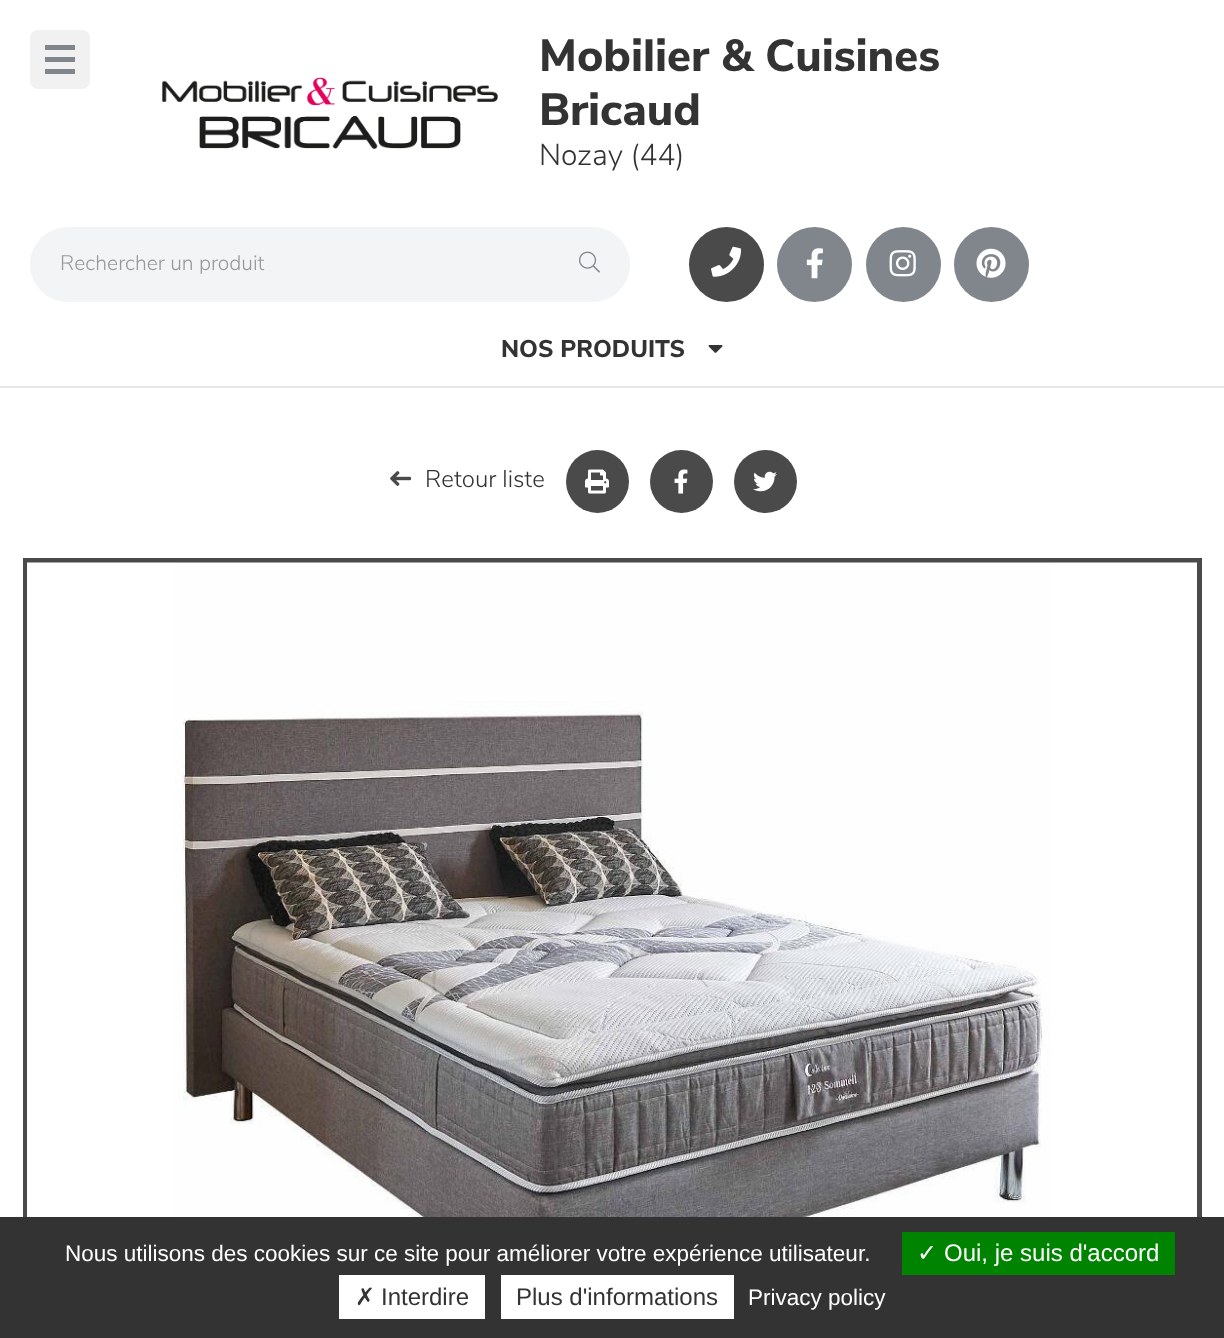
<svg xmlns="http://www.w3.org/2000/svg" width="1224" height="1338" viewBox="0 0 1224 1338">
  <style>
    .t1 { font: 800 45px Nunito Sans; fill: #333; }
    .t2 { font: 300 30px Nunito Sans; fill: #333; }
    .t3 { font: 300 21px Nunito Sans; fill: #999; }
    .t4 { font: 800 24px Nunito Sans; fill: #333; }
    .t5 { font: 300 24px Nunito Sans; fill: #333; }
    .t6 { font: 22.5px Liberation Sans; fill: #fff; }
    .t7 { font: 24px DejaVu Sans; fill: #fff; }
    .t8 { font: 24px Liberation Sans; fill: #fff; }
    .t9 { font: 24px DejaVu Sans; fill: #333; }
    .t10 { font: 24px Liberation Sans; fill: #333; }
  </style>
  <rect width="100%" height="100%" fill="#fff"/>
  <rect x="0" y="386" width="1224" height="2" fill="#e6e6e6"/>
  <rect x="30" y="30" width="60" height="59" rx="8" fill="#f1f1f1"/>
  <rect x="45" y="45" width="30" height="5" fill="#80868b"/>
  <rect x="45" y="57" width="30" height="5" fill="#80868b"/>
  <rect x="45" y="69" width="30" height="5" fill="#80868b"/>
  <image x="162" y="77" width="336" height="72" href="images/1.png"/>
  <text x="539" y="71" class="t1">Mobilier &amp; Cuisines</text>
  <text x="539" y="125" class="t1">Bricaud</text>
  <text x="539" y="165" class="t2">Nozay (44)</text>
  <path d="M67.5 227H566V302H67.5C47 302 30 285 30 264.5C30 244 47 227 67.5 227Z" fill="#f2f4f6"/>
  <text x="60" y="270" class="t3">Rechercher un produit</text>
  <path d="M564 227H592.5C613 227 630 244 630 264.5C630 285 613 302 592.5 302H564Z" fill="#f2f4f6"/>
  <image x="579" y="251" width="21" height="22" href="images/2.png"/>
  <circle cx="726.5" cy="264.5" r="37.5" fill="#4a4a4a"/>
  <image x="711" y="246" width="31" height="31" href="images/3.png"/>
  <circle cx="814.5" cy="264.5" r="37.5" fill="#80868b"/>
  <image x="806" y="248" width="17" height="31" href="images/4.png"/>
  <circle cx="903.5" cy="264.5" r="37.5" fill="#80868b"/>
  <image x="889" y="250" width="27" height="27" href="images/5.png"/>
  <circle cx="991.5" cy="264.5" r="37.5" fill="#80868b"/>
  <image x="976" y="248" width="30" height="30" href="images/6.png"/>
  <text x="501" y="357" class="t4">NOS PRODUITS</text>
  <image x="708" y="345" width="15" height="8" href="images/7.png"/>
  <image x="390" y="471" width="22" height="15" href="images/8.png"/>
  <text x="425" y="487" class="t5">Retour liste</text>
  <circle cx="597.5" cy="481.5" r="31.5" fill="#4a4a4a"/>
  <image x="585" y="469" width="24" height="25" href="images/9.png"/>
  <circle cx="681.5" cy="481.5" r="31.5" fill="#4a4a4a"/>
  <image x="674" y="469" width="14" height="25" href="images/10.png"/>
  <circle cx="765.5" cy="481.5" r="31.5" fill="#4a4a4a"/>
  <image x="753" y="471" width="24" height="21" href="images/11.png"/>
  <rect x="25.5" y="560.5" width="1174" height="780" fill="none" stroke="#4a4a4a" stroke-width="5"/>
  <image x="27" y="562" width="1170" height="655" href="images/12.png"/>
  <rect x="0" y="1217" width="1224" height="121" fill="#333"/>
  <text x="65" y="1261" class="t6">Nous utilisons des cookies sur ce site pour améliorer votre expérience utilisateur.</text>
  <rect x="902" y="1232" width="273" height="43" fill="#008300"/>
  <text x="917" y="1261" class="t7">✓</text>
  <text x="944" y="1261" class="t8">Oui, je suis d'accord</text>
  <rect x="339" y="1275" width="146" height="44" fill="#fff"/>
  <text x="355" y="1305" class="t9">✗</text>
  <text x="381" y="1305" class="t10">Interdire</text>
  <rect x="501" y="1275" width="233" height="44" fill="#fff"/>
  <text x="516" y="1305" class="t10">Plus d'informations</text>
  <text x="748" y="1305" class="t6">Privacy policy</text>
</svg>
